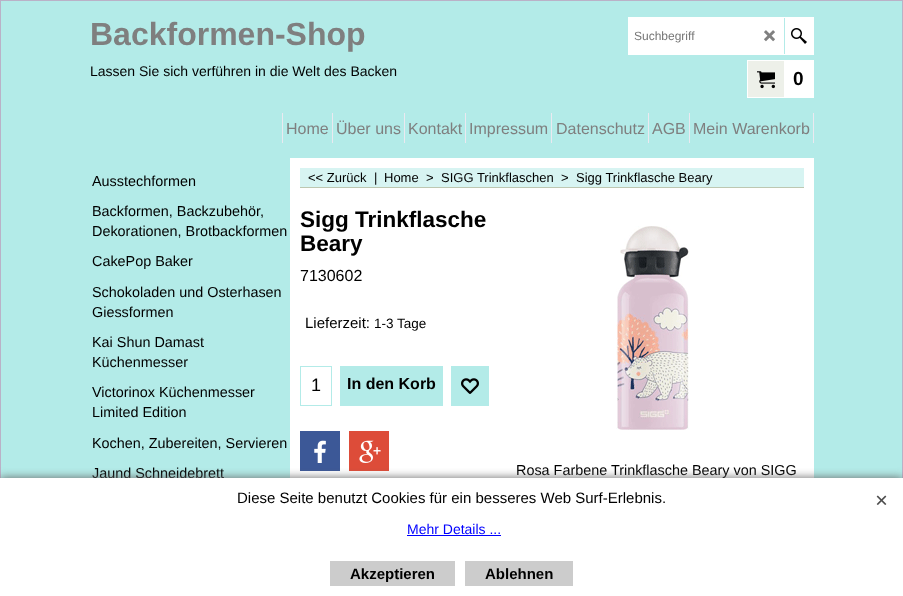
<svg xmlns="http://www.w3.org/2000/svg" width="903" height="596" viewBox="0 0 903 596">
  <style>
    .t1 { font: bold 32px Liberation Sans; fill: #7f7f7f; }
    .t2 { font: 14px Liberation Sans; fill: #000; }
    .t3 { font: 12px Liberation Sans; fill: #757575; }
    .t4 { font: bold 19px Liberation Sans; fill: #000; }
    .t5 { font: 16px Liberation Sans; fill: #7f7f7f; }
    .t6 { font: 14.4px Liberation Sans; fill: #000; }
    .t7 { font: 13px Liberation Sans; fill: #000; }
    .t8 { font: bold 22.5px Liberation Sans; fill: #000; }
    .t9 { font: 16px Liberation Sans; fill: #000; }
    .t10 { font: 15px Liberation Sans; fill: #000; }
    .t11 { font: 13.5px Liberation Sans; fill: #000; }
    .t12 { font: 18px Liberation Sans; fill: #000; }
    .t13 { font: bold 16px Liberation Sans; fill: #000; }
    .t14 { font: 14px Liberation Sans; fill: #00f; }
    .t15 { font: bold 15px Liberation Sans; fill: #000; }
  </style>
  <rect width="100%" height="100%" fill="#b3ebe8"/>
  <rect x="0.5" y="0.5" width="902" height="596" fill="none" stroke="#bab1c7"/>
  <text x="90" y="45" class="t1">Backformen-Shop</text>
  <text x="90" y="76" class="t2">Lassen Sie sich verführen in die Welt des Backen</text>
  <rect x="628.5" y="17.5" width="185" height="37" fill="none" stroke="#fff"/>
  <rect x="629" y="18" width="155" height="36" fill="#fff"/>
  <text x="634" y="40" class="t3">Suchbegriff</text>
  <image x="764" y="30" width="11" height="12" href="images/1.png"/>
  <rect x="785" y="18" width="28" height="36" fill="#fff"/>
  <image x="791" y="28" width="16" height="16" href="images/2.png"/>
  <rect x="785" y="60" width="29" height="38" fill="#fff"/>
  <rect x="747.5" y="60.5" width="37" height="37" fill="#edf0e9" stroke="#fff"/>
  <image x="757" y="71" width="18" height="18" href="images/3.png"/>
  <text x="793" y="85" class="t4">0</text>
  <rect x="282" y="113" width="1" height="30" fill="#ebe9f0"/>
  <text x="286" y="134" class="t5">Home</text>
  <rect x="332" y="113" width="1" height="30" fill="#ebe9f0"/>
  <text x="336" y="134" class="t5">Über uns</text>
  <rect x="404" y="113" width="1" height="30" fill="#ebe9f0"/>
  <text x="408" y="134" class="t5">Kontakt</text>
  <rect x="465" y="113" width="1" height="30" fill="#ebe9f0"/>
  <text x="469" y="134" class="t5">Impressum</text>
  <rect x="551" y="113" width="1" height="30" fill="#ebe9f0"/>
  <text x="556" y="134" class="t5">Datenschutz</text>
  <rect x="648" y="113" width="1" height="30" fill="#ebe9f0"/>
  <text x="652" y="134" class="t5">AGB</text>
  <rect x="689" y="113" width="1" height="30" fill="#ebe9f0"/>
  <text x="693" y="134" class="t5">Mein Warenkorb</text>
  <rect x="813" y="113" width="1" height="30" fill="#ebe9f0"/>
  <text x="92" y="186" class="t6">Ausstechformen</text>
  <text x="92" y="216" class="t6">Backformen, Backzubehör,</text>
  <text x="92" y="236" class="t6">Dekorationen, Brotbackformen</text>
  <text x="92" y="266" class="t6">CakePop Baker</text>
  <text x="92" y="297" class="t6">Schokoladen und Osterhasen</text>
  <text x="92" y="317" class="t6">Giessformen</text>
  <text x="92" y="347" class="t6">Kai Shun Damast</text>
  <text x="92" y="367" class="t6">Küchenmesser</text>
  <text x="92" y="397" class="t6">Victorinox Küchenmesser</text>
  <text x="92" y="417" class="t6">Limited Edition</text>
  <text x="92" y="448" class="t6">Kochen, Zubereiten, Servieren</text>
  <text x="92" y="478" class="t6">Jaund Schneidebrett</text>
  <rect x="290" y="158" width="524" height="320" fill="#fff"/>
  <rect x="300" y="168" width="504" height="19" fill="#d7f4f2"/>
  <rect x="300" y="187" width="504" height="1" fill="#bdc7b1"/>
  <text x="308" y="182" class="t7">&lt;&lt; Zurück</text>
  <text x="374" y="182" class="t7">|</text>
  <text x="384" y="182" class="t7">Home</text>
  <text x="426" y="182" class="t7">&gt;</text>
  <text x="441" y="182" class="t7">SIGG Trinkflaschen</text>
  <text x="561" y="182" class="t7">&gt;</text>
  <text x="576" y="182" class="t7">Sigg Trinkflasche Beary</text>
  <text x="300" y="227" class="t8">Sigg Trinkflasche</text>
  <text x="300" y="251" class="t8">Beary</text>
  <text x="300" y="281" class="t9">7130602</text>
  <text x="305" y="328" class="t10">Lieferzeit:</text>
  <text x="374" y="328" class="t11">1-3 Tage</text>
  <rect x="300" y="366" width="32" height="40" fill="#b3ebe8"/>
  <rect x="301" y="367" width="30" height="38" fill="#fff"/>
  <text x="311" y="391" class="t12">1</text>
  <rect x="340" y="366" width="103" height="40" fill="#b3ebe8"/>
  <text x="347" y="389" class="t13">In den Korb</text>
  <rect x="451" y="366" width="38" height="40" fill="#b3ebe8"/>
  <image x="461" y="378" width="18" height="16" href="images/4.png"/>
  <rect x="300" y="431" width="40" height="40" fill="#3c5897"/>
  <image x="314" y="440" width="12" height="23" href="images/5.png"/>
  <rect x="349" y="431" width="40" height="40" fill="#dd4c39"/>
  <image x="359" y="440" width="22" height="23" href="images/6.png"/>
  <image x="616" y="226" width="73" height="204" href="images/7.png"/>
  <text x="516" y="475" class="t6">Rosa Farbene Trinkflasche Beary von SIGG</text>
  <rect x="0" y="478" width="903" height="118" fill="#666" filter="blur(5px)"/>
  <rect x="0" y="478" width="903" height="118" fill="#fff"/>
  <text x="237" y="503" class="t10">Diese Seite benutzt Cookies für ein besseres Web Surf-Erlebnis.</text>
  <text x="407" y="534" class="t14">Mehr Details ...</text>
  <rect x="407" y="535" width="94" height="1" fill="#00f"/>
  <image x="876" y="495" width="11" height="10" href="images/8.png"/>
  <rect x="330" y="561" width="125" height="25" fill="#ccc"/>
  <text x="350" y="579" class="t15">Akzeptieren</text>
  <rect x="465" y="561" width="108" height="25" fill="#ccc"/>
  <text x="485" y="579" class="t15">Ablehnen</text>
</svg>
